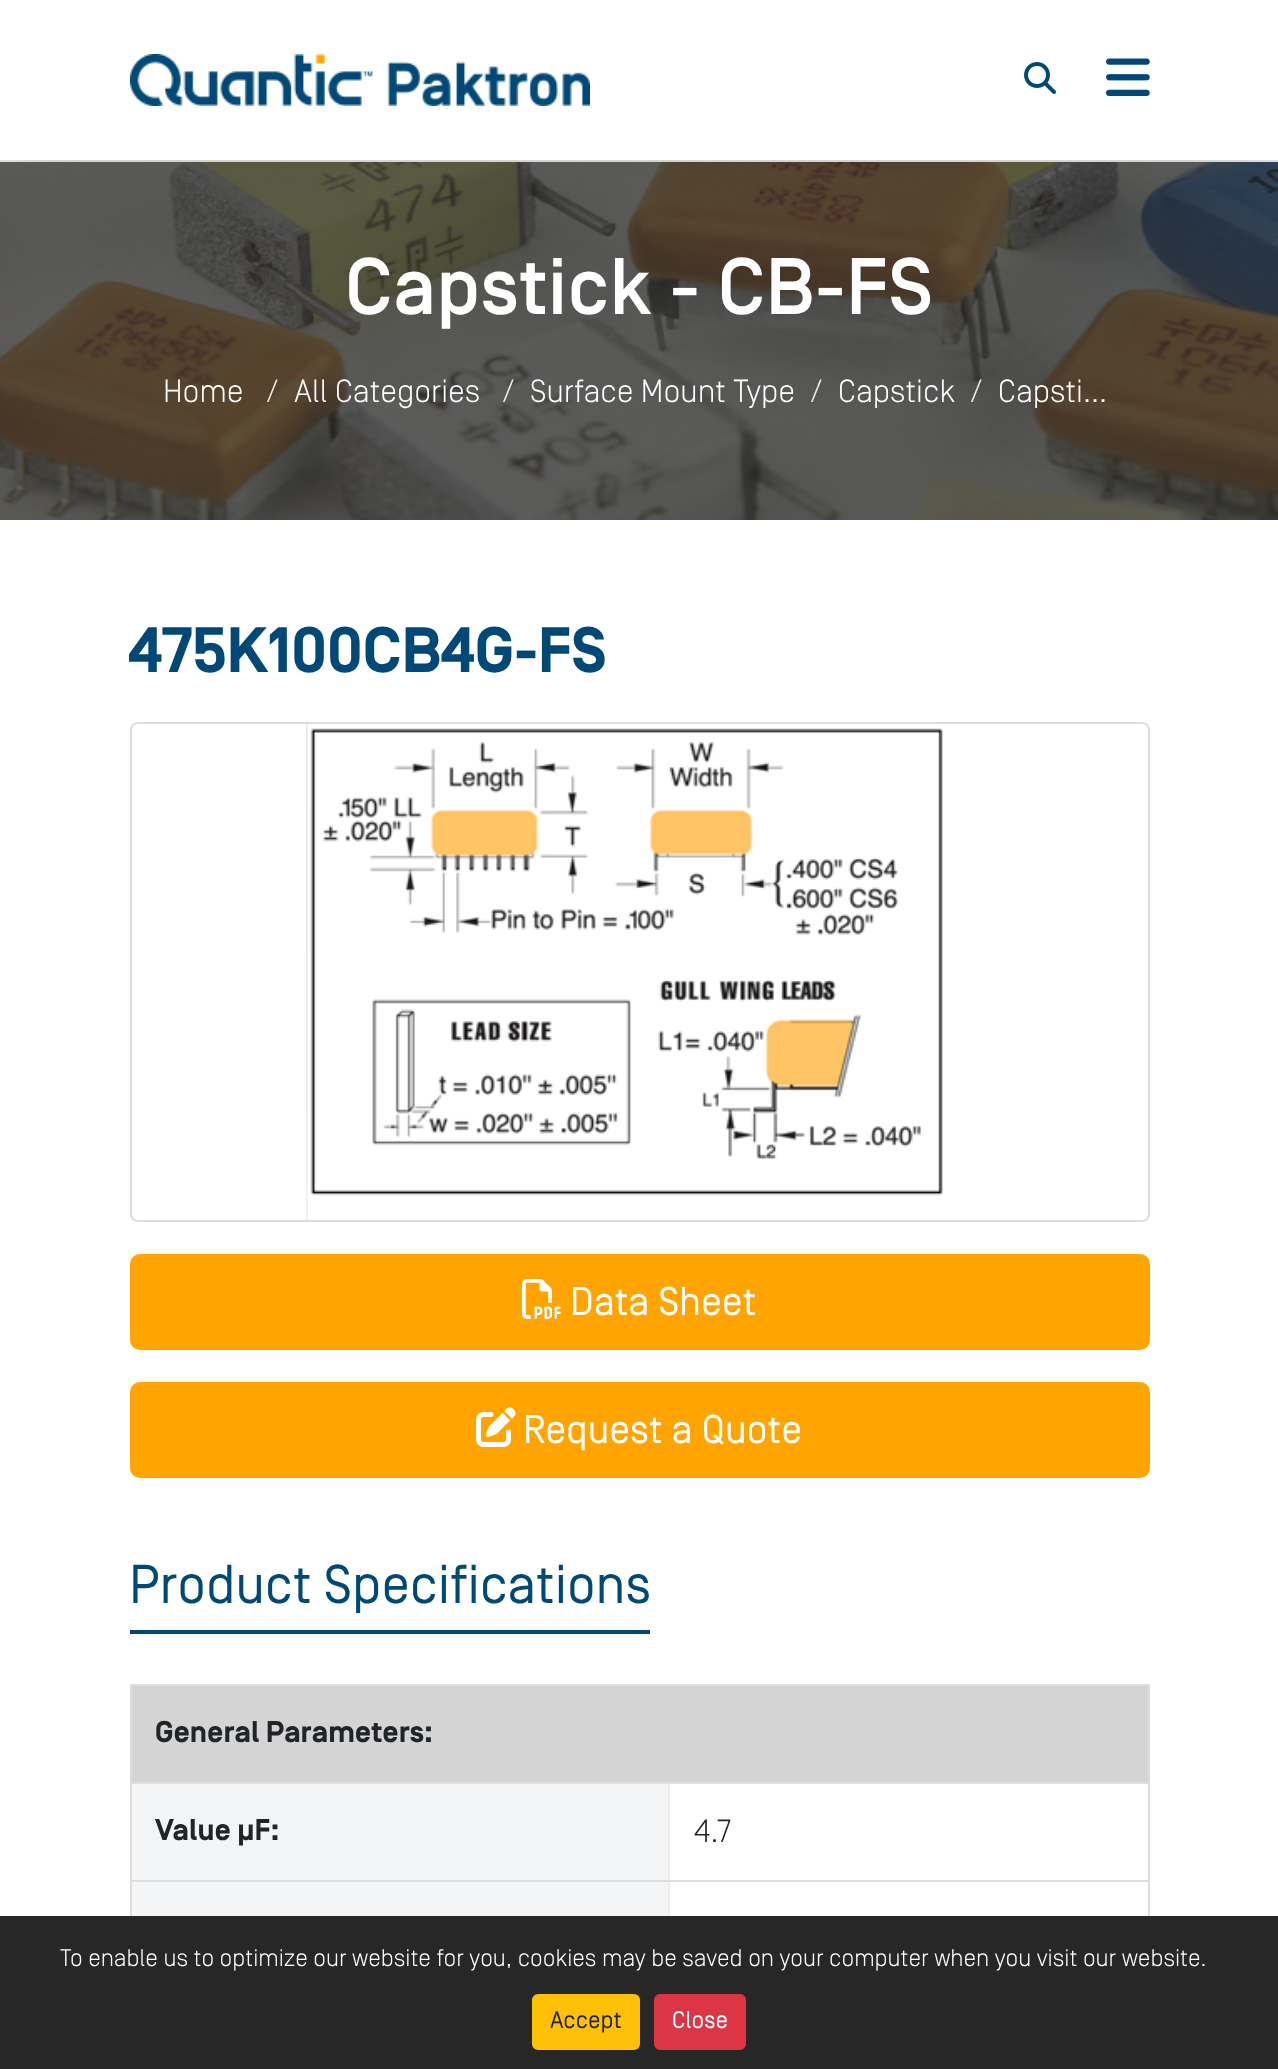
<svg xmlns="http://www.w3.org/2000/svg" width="1278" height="2069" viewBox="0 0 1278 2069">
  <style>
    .t1 { font: 500 80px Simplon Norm; fill: #fff; }
    .t2 { font: 300 32px Simplon Norm; fill: #fff; }
    .t3 { font: 300 32px Simplon Norm; fill: #eee; }
    .t4 { font: bold 64px Simplon Norm; fill: #004976; }
    .t5 { font: 40px Simplon Norm; fill: #fff; }
    .t6 { font: 54.5px Simplon Norm; fill: #004976; }
    .t7 { font: bold 30px Simplon Norm; fill: #212529; }
    .t8 { font: 300 32px Simplon Norm; fill: #212529; }
    .t9 { font: 300 24px Simplon Norm; fill: #fff; }
    .t10 { font: 24px Simplon Norm; fill: #212529; }
    .t11 { font: 24px Simplon Norm; fill: #fff; }
  </style>
  <rect width="100%" height="100%" fill="#fff"/>
  <rect x="0" y="160" width="1278" height="2" fill="#e6e6e6"/>
  <rect x="12" y="26" width="1254" height="136" fill="#00000026" filter="blur(30px)"/>
  <rect x="0" y="0" width="1278" height="160" fill="#fff"/>
  <image x="130" y="54" width="460" height="52" href="images/1.png"/>
  <image x="1024" y="62" width="32" height="32" href="images/2.png"/>
  <image x="1106" y="58" width="44" height="38" href="images/3.png"/>
  <image x="0" y="162" width="1278" height="358" href="images/4.png"/>
  <text x="345" y="314" class="t1">Capstick - CB-FS</text>
  <text x="163" y="402" class="t2">Home</text>
  <text x="267" y="402" class="t3">/</text>
  <text x="294" y="402" class="t2">All Categories</text>
  <text x="503" y="402" class="t3">/</text>
  <text x="530" y="402" class="t2">Surface Mount Type</text>
  <text x="811" y="402" class="t3">/</text>
  <text x="838" y="402" class="t2">Capstick</text>
  <text x="971" y="402" class="t3">/</text>
  <text x="998" y="402" class="t2">Capsti…</text>
  <text x="129" y="672" class="t4">475K100CB4G-FS</text>
  <rect x="131" y="723" width="1018" height="498" rx="7" fill="none" stroke="#ddd" stroke-width="2"/>
  <image x="306" y="724" width="637" height="496" href="images/5.png"/>
  <rect x="131" y="1255" width="1018" height="94" rx="9" fill="#ffa400" stroke="#ffa400" stroke-width="2"/>
  <image x="522" y="1279" width="39" height="40" href="images/6.png"/>
  <text x="570" y="1315" class="t5">Data Sheet</text>
  <rect x="131" y="1383" width="1018" height="94" rx="9" fill="#ffa400" stroke="#ffa400" stroke-width="2"/>
  <image x="476" y="1407" width="40" height="40" href="images/7.png"/>
  <text x="523" y="1443" class="t5">Request a Quote</text>
  <rect x="130" y="1630" width="520" height="4" fill="#004976"/>
  <text x="129" y="1603" class="t6">Product Specifications</text>
  <rect x="130" y="1684" width="1020" height="2" fill="#ddd"/>
  <rect x="1148" y="1684" width="2" height="232" fill="#ddd"/>
  <rect x="130" y="1684" width="2" height="232" fill="#ddd"/>
  <rect x="132" y="1686" width="1016" height="96" fill="#d4d4d4"/>
  <rect x="668" y="1880" width="2" height="36" fill="#eee"/>
  <rect x="668" y="1880" width="482" height="2" fill="#ddd"/>
  <rect x="668" y="1782" width="2" height="100" fill="#eee"/>
  <rect x="130" y="1782" width="1020" height="2" fill="#ddd"/>
  <text x="155" y="1742" class="t7">General Parameters:</text>
  <rect x="132" y="1784" width="536" height="96" fill="#f3f5f7"/>
  <rect x="130" y="1880" width="540" height="2" fill="#ddd"/>
  <text x="155" y="1840" class="t7">Value µF:</text>
  <text x="694" y="1842" class="t8">4.7</text>
  <rect x="132" y="1882" width="536" height="34" fill="#f3f5f7"/>
  <rect x="0" y="1916" width="1278" height="153" fill="#272727"/>
  <text x="60" y="1966" class="t9">To enable us to optimize our website for you, cookies may be saved on your computer when you visit our website.</text>
  <rect x="533" y="1995" width="106" height="54" rx="5" fill="#ffc107" stroke="#ffc107" stroke-width="2"/>
  <text x="550" y="2028" class="t10">Accept</text>
  <rect x="655" y="1995" width="90" height="54" rx="5" fill="#dc3545" stroke="#dc3545" stroke-width="2"/>
  <text x="672" y="2028" class="t11">Close</text>
</svg>
